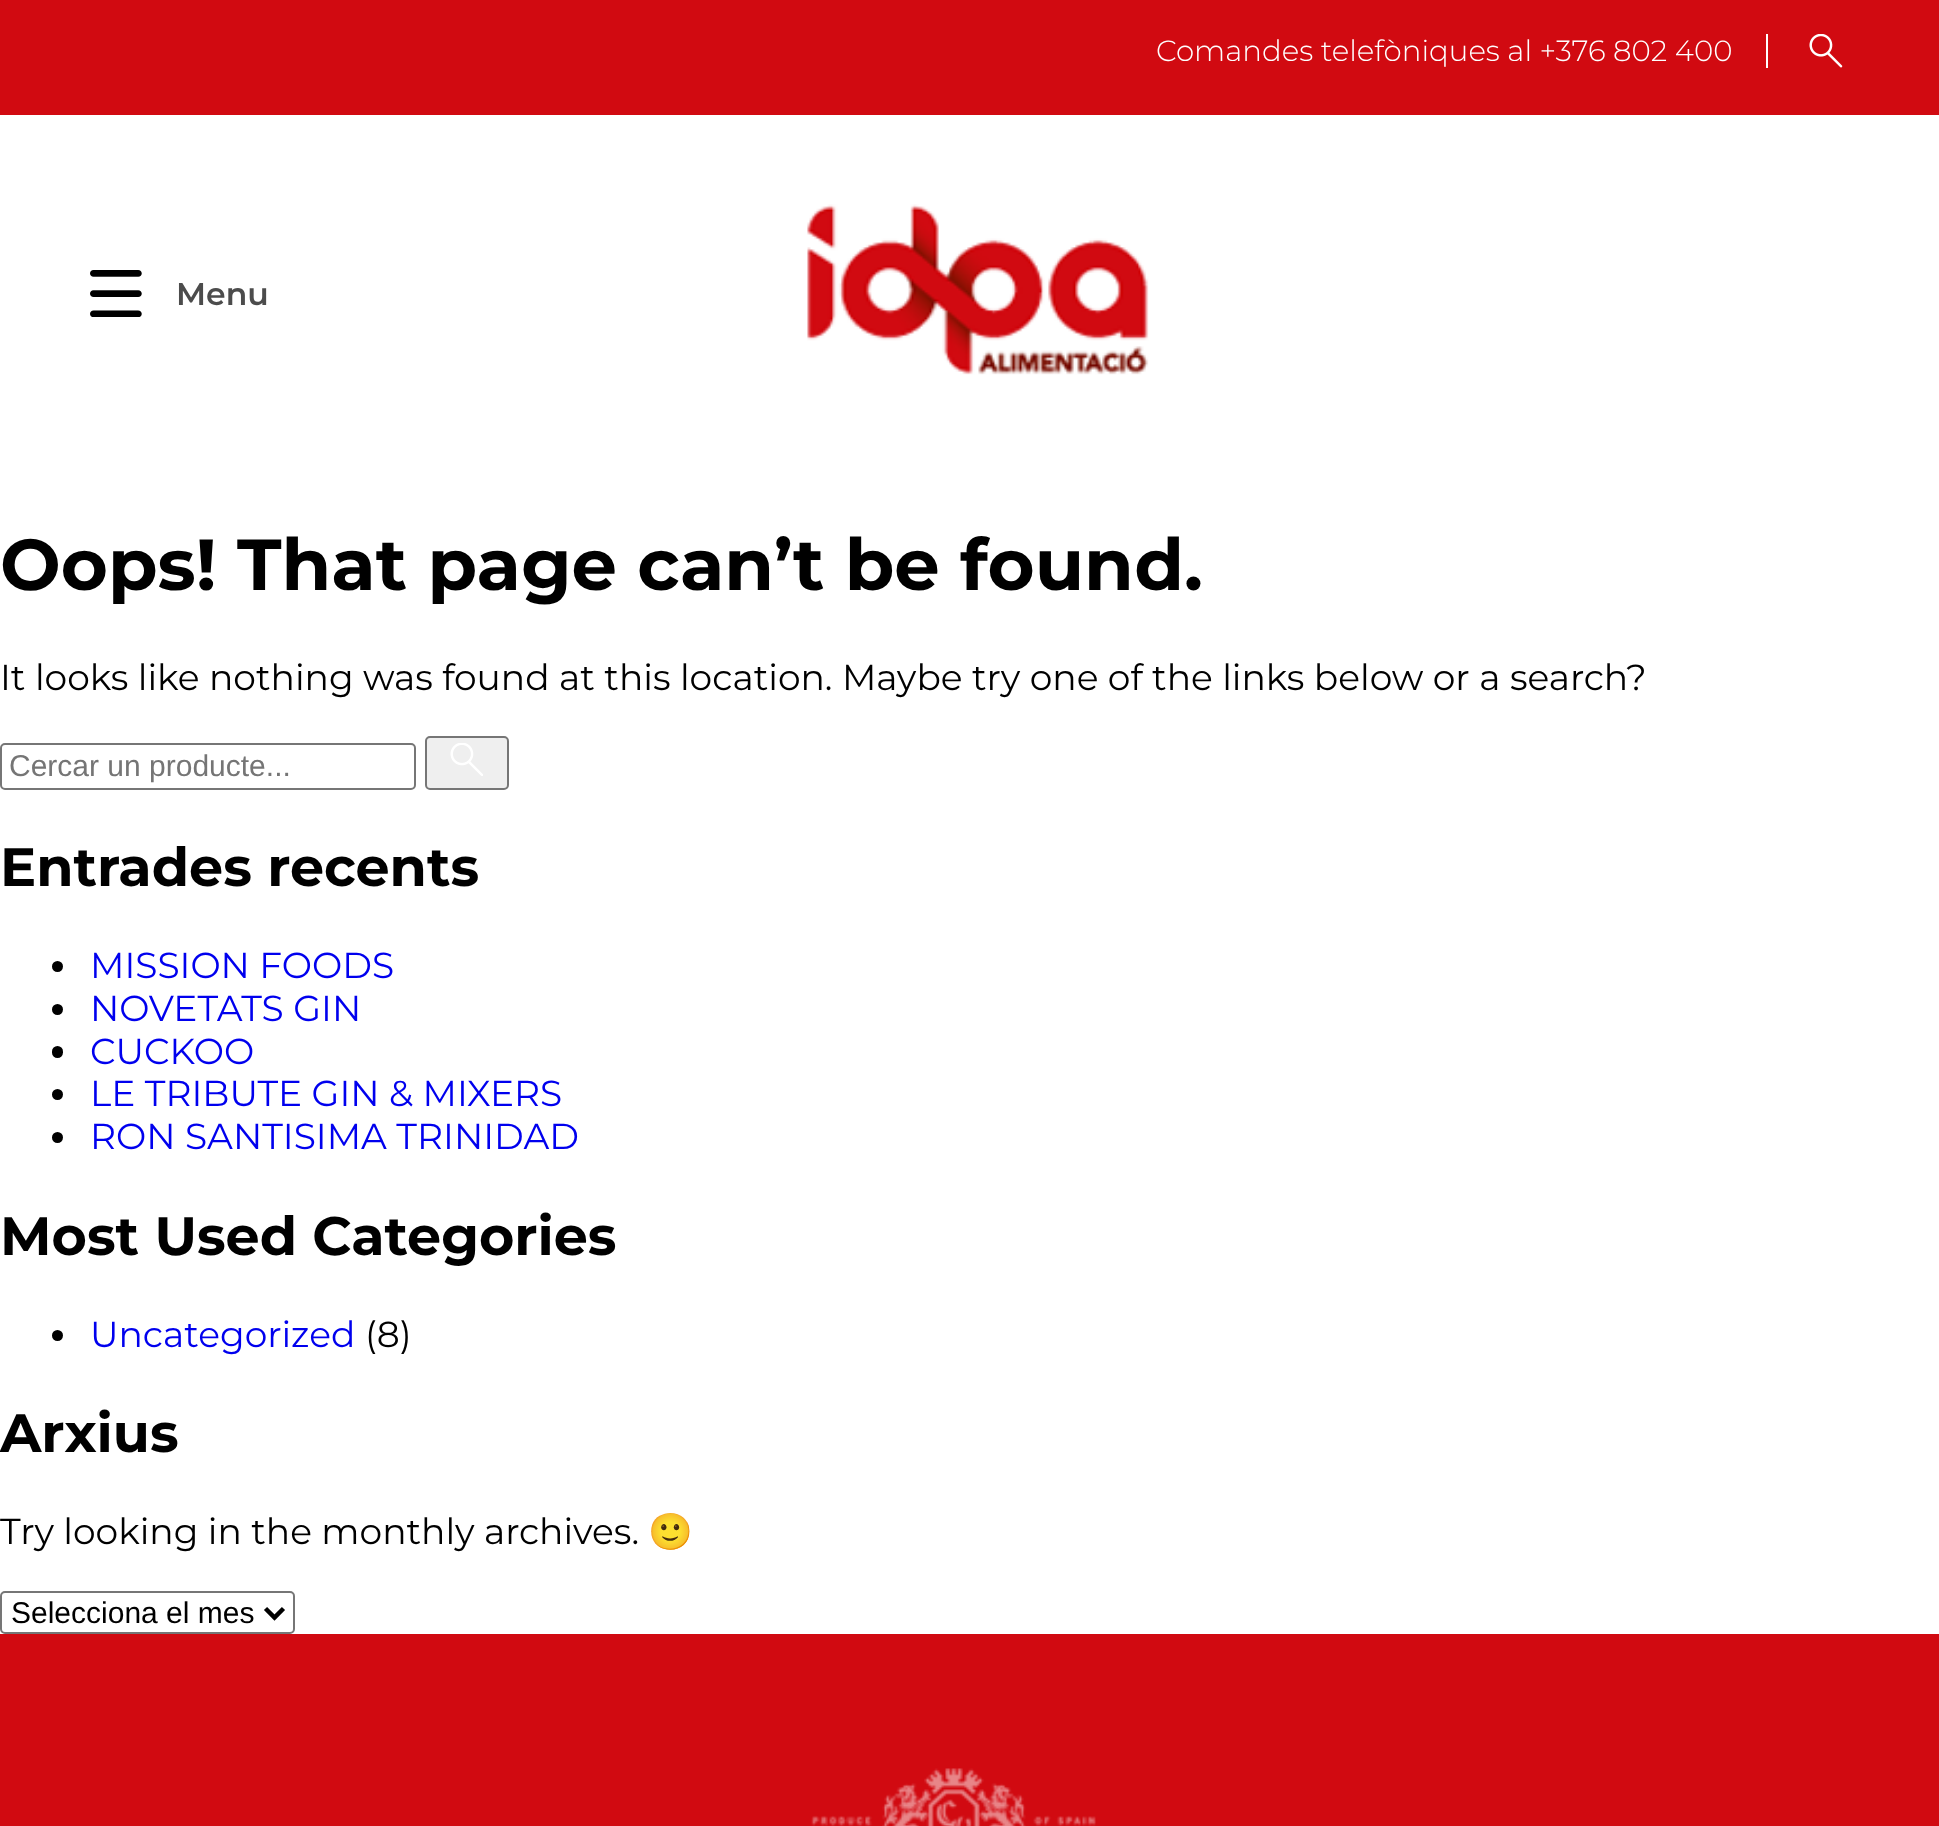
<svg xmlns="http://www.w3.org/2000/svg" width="1939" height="1826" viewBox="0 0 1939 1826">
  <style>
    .t1 { font: 300 29.25px Montserrat; fill: #fff; }
    .t2 { font: 600 31.5px Montserrat; fill: #4c4c4c; }
    .t3 { font: bold 72px Montserrat; fill: #000; }
    .t4 { font: 36px Montserrat; fill: #000; }
    .t5 { font: 30px Liberation Sans; fill: #757575; }
    .t6 { font: bold 54px Montserrat; fill: #000; }
    .t7 { font: 36px Montserrat; fill: #00e; }
    .t8 { font: 36px Noto Color Emoji; fill: #000; }
    .t9 { font: 30px Liberation Sans; fill: #000; }
  </style>
  <rect width="100%" height="100%" fill="#fff"/>
  <rect x="0" y="0" width="1939" height="115" fill="#d10a11"/>
  <text x="1156" y="61" class="t1">Comandes telefòniques al +376 802 400</text>
  <rect x="1766" y="34" width="2" height="34" fill="#fff"/>
  <image x="1809" y="34" width="34" height="34" href="images/1.png"/>
  <image x="90" y="270" width="52" height="47" href="images/2.png"/>
  <text x="176" y="305" class="t2">Menu</text>
  <image x="807" y="204" width="342" height="171" href="images/3.png"/>
  <text x="0" y="590" class="t3">Oops! That page can’t be found.</text>
  <text x="0" y="690" class="t4">It looks like nothing was found at this location. Maybe try one of the links below or a search?</text>
  <rect x="1" y="744" width="414" height="45" rx="4" fill="none" stroke="#767676" stroke-width="2"/>
  <text x="9" y="776" class="t5">Cercar un producte...</text>
  <rect x="426" y="737" width="82" height="52" rx="4" fill="#efefef" stroke="#767676" stroke-width="2"/>
  <image x="450" y="743" width="33" height="33" href="images/4.png"/>
  <text x="0" y="886" class="t6">Entrades recents</text>
  <circle cx="57.5" cy="966.5" r="5.5" fill="#000"/>
  <text x="90" y="978" class="t7">MISSION FOODS</text>
  <circle cx="57.5" cy="1009.5" r="5.5" fill="#000"/>
  <text x="90" y="1021" class="t7">NOVETATS GIN</text>
  <rect x="52" y="1046" width="11" height="12" rx="5.5" fill="#000"/>
  <text x="90" y="1064" class="t7">CUCKOO</text>
  <circle cx="57.5" cy="1094.5" r="5.5" fill="#000"/>
  <text x="90" y="1106" class="t7">LE TRIBUTE GIN &amp; MIXERS</text>
  <circle cx="57.5" cy="1137.5" r="5.5" fill="#000"/>
  <text x="90" y="1149" class="t7">RON SANTISIMA TRINIDAD</text>
  <text x="0" y="1255" class="t6">Most Used Categories</text>
  <circle cx="57.5" cy="1335.5" r="5.5" fill="#000"/>
  <text x="90" y="1347" class="t7">Uncategorized</text>
  <text x="365" y="1347" class="t4">(8)</text>
  <text x="0" y="1452" class="t6">Arxius</text>
  <text x="0" y="1544" class="t4">Try looking in the monthly archives.</text>
  <text x="648" y="1544" class="t8">🙂</text>
  <rect x="1" y="1592" width="293" height="41" rx="4" fill="none" stroke="#767676" stroke-width="2"/>
  <path d="M265.5 1608.5L274.5 1617.5L283.5 1608.5" fill="none" stroke="#000" stroke-width="4.5"/>
  <text x="11" y="1623" class="t9">Selecciona el mes</text>
  <rect x="0" y="1634" width="1939" height="192" fill="#d10a11"/>
  <image x="811" y="1768" width="285" height="58" href="images/5.png"/>
</svg>
